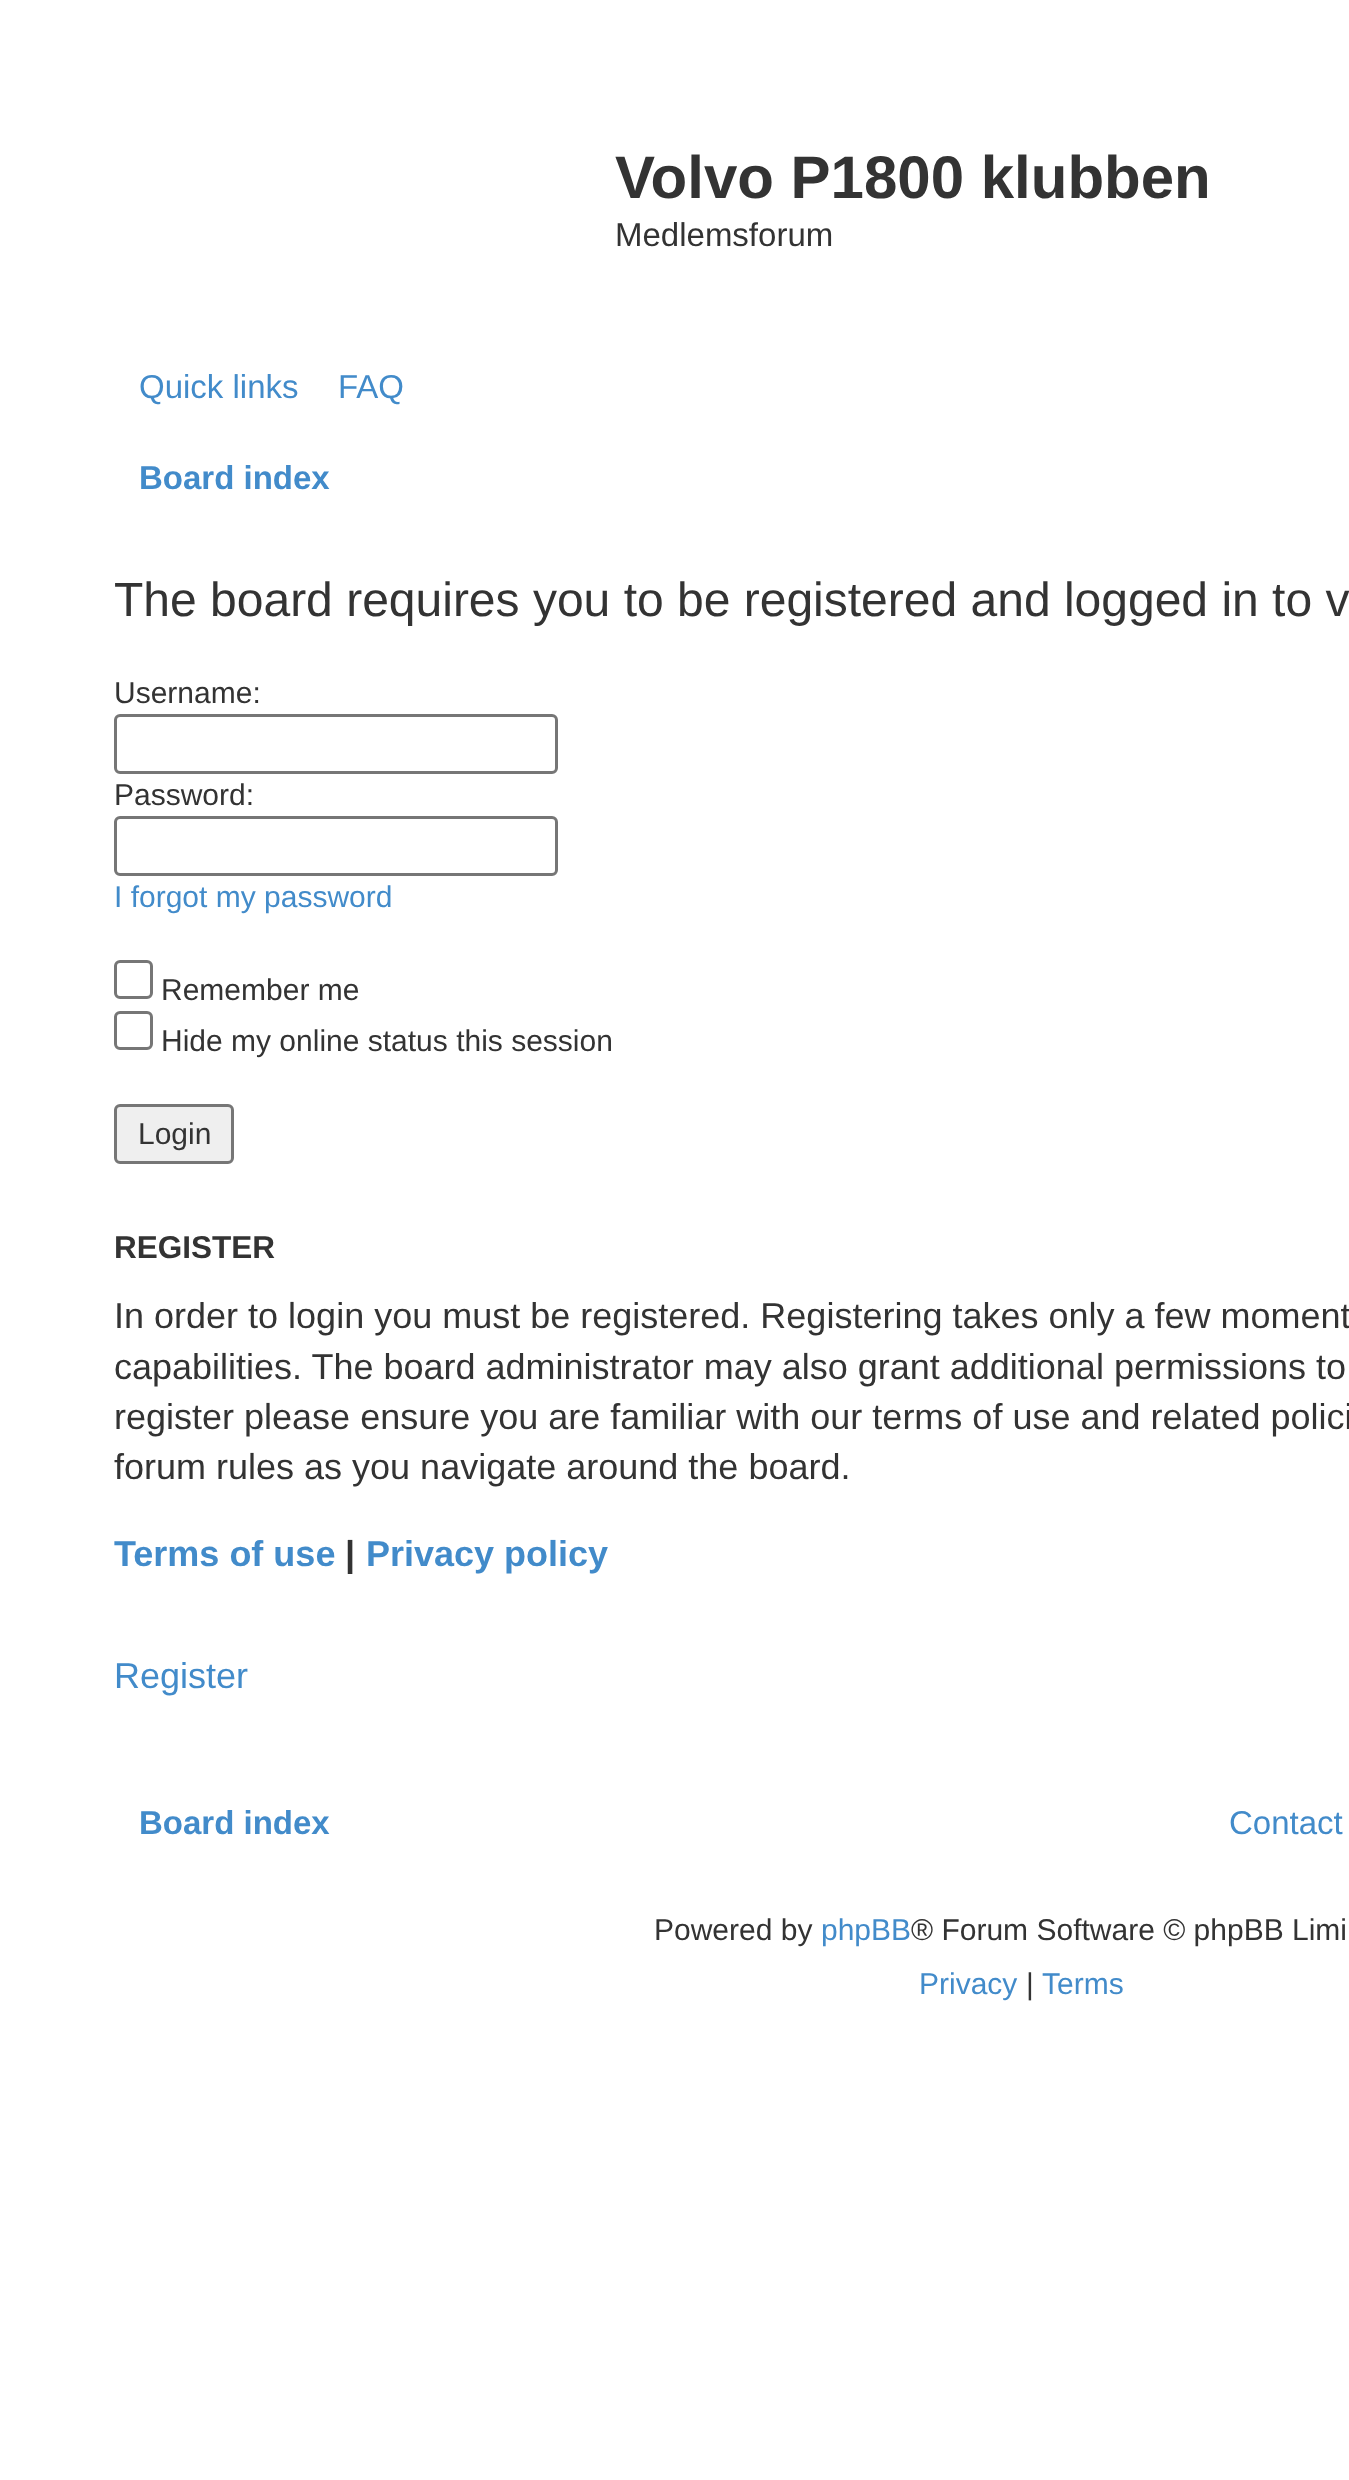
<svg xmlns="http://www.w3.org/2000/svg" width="1349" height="2480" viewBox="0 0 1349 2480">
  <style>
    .t1 { font: bold 60px Liberation Sans; fill: #333; }
    .t2 { font: 33px Liberation Sans; fill: #333; }
    .t3 { font: 33px Liberation Sans; fill: #428bca; }
    .t4 { font: bold 33px Liberation Sans; fill: #428bca; }
    .t5 { font: 48px Liberation Sans; fill: #333; }
    .t6 { font: 30px Liberation Sans; fill: #333; }
    .t7 { font: 30px Liberation Sans; fill: #428bca; }
    .t8 { font: bold 31.5px Liberation Sans; fill: #333; }
    .t9 { font: 36px Liberation Sans; fill: #333; }
    .t10 { font: bold 36px Liberation Sans; fill: #428bca; }
    .t11 { font: bold 36px Liberation Sans; fill: #333; }
    .t12 { font: 36px Liberation Sans; fill: #428bca; }
  </style>
  <rect width="100%" height="100%" fill="#fff"/>
  <text x="615" y="198" class="t1">Volvo P1800 klubben</text>
  <text x="615" y="246" class="t2">Medlemsforum</text>
  <text x="139" y="398" class="t3">Quick links</text>
  <text x="338" y="398" class="t3">FAQ</text>
  <text x="139" y="489" class="t4">Board index</text>
  <text x="114" y="616" class="t5">The board requires you to be registered and logged in to v</text>
  <text x="114" y="703" class="t6">Username:</text>
  <rect x="115.5" y="715.5" width="441" height="57" rx="4.5" fill="none" stroke="#767676" stroke-width="3"/>
  <text x="114" y="805" class="t6">Password:</text>
  <rect x="115.5" y="817.5" width="441" height="57" rx="4.5" fill="none" stroke="#767676" stroke-width="3"/>
  <text x="114" y="907" class="t7">I forgot my password</text>
  <rect x="115.5" y="961.5" width="36" height="36" rx="4.5" fill="none" stroke="#767676" stroke-width="3"/>
  <text x="161" y="1000" class="t6">Remember me</text>
  <rect x="115.5" y="1012.5" width="36" height="36" rx="4.5" fill="none" stroke="#767676" stroke-width="3"/>
  <text x="161" y="1051" class="t6">Hide my online status this session</text>
  <rect x="115.5" y="1105.5" width="117" height="57" rx="4.5" fill="#efefef" stroke="#767676" stroke-width="3"/>
  <text x="138" y="1144" class="t6">Login</text>
  <text x="114" y="1258" class="t8">REGISTER</text>
  <text x="114" y="1328" class="t9">In order to login you must be registered. Registering takes only a few moment</text>
  <text x="114" y="1379" class="t9">capabilities. The board administrator may also grant additional permissions to</text>
  <text x="114" y="1429" class="t9">register please ensure you are familiar with our terms of use and related polici</text>
  <text x="114" y="1479" class="t9">forum rules as you navigate around the board.</text>
  <text x="114" y="1566" class="t10">Terms of use</text>
  <text x="345" y="1566" class="t11">|</text>
  <text x="366" y="1566" class="t10">Privacy policy</text>
  <text x="114" y="1688" class="t12">Register</text>
  <text x="139" y="1834" class="t4">Board index</text>
  <text x="1229" y="1834" class="t3">Contact</text>
  <text x="654" y="1940" class="t6">Powered by</text>
  <text x="821" y="1940" class="t7">phpBB</text>
  <text x="911" y="1940" class="t6">® Forum Software © phpBB Limi</text>
  <text x="919" y="1994" class="t7">Privacy</text>
  <text x="1026" y="1994" class="t6">|</text>
  <text x="1042" y="1994" class="t7">Terms</text>
</svg>
